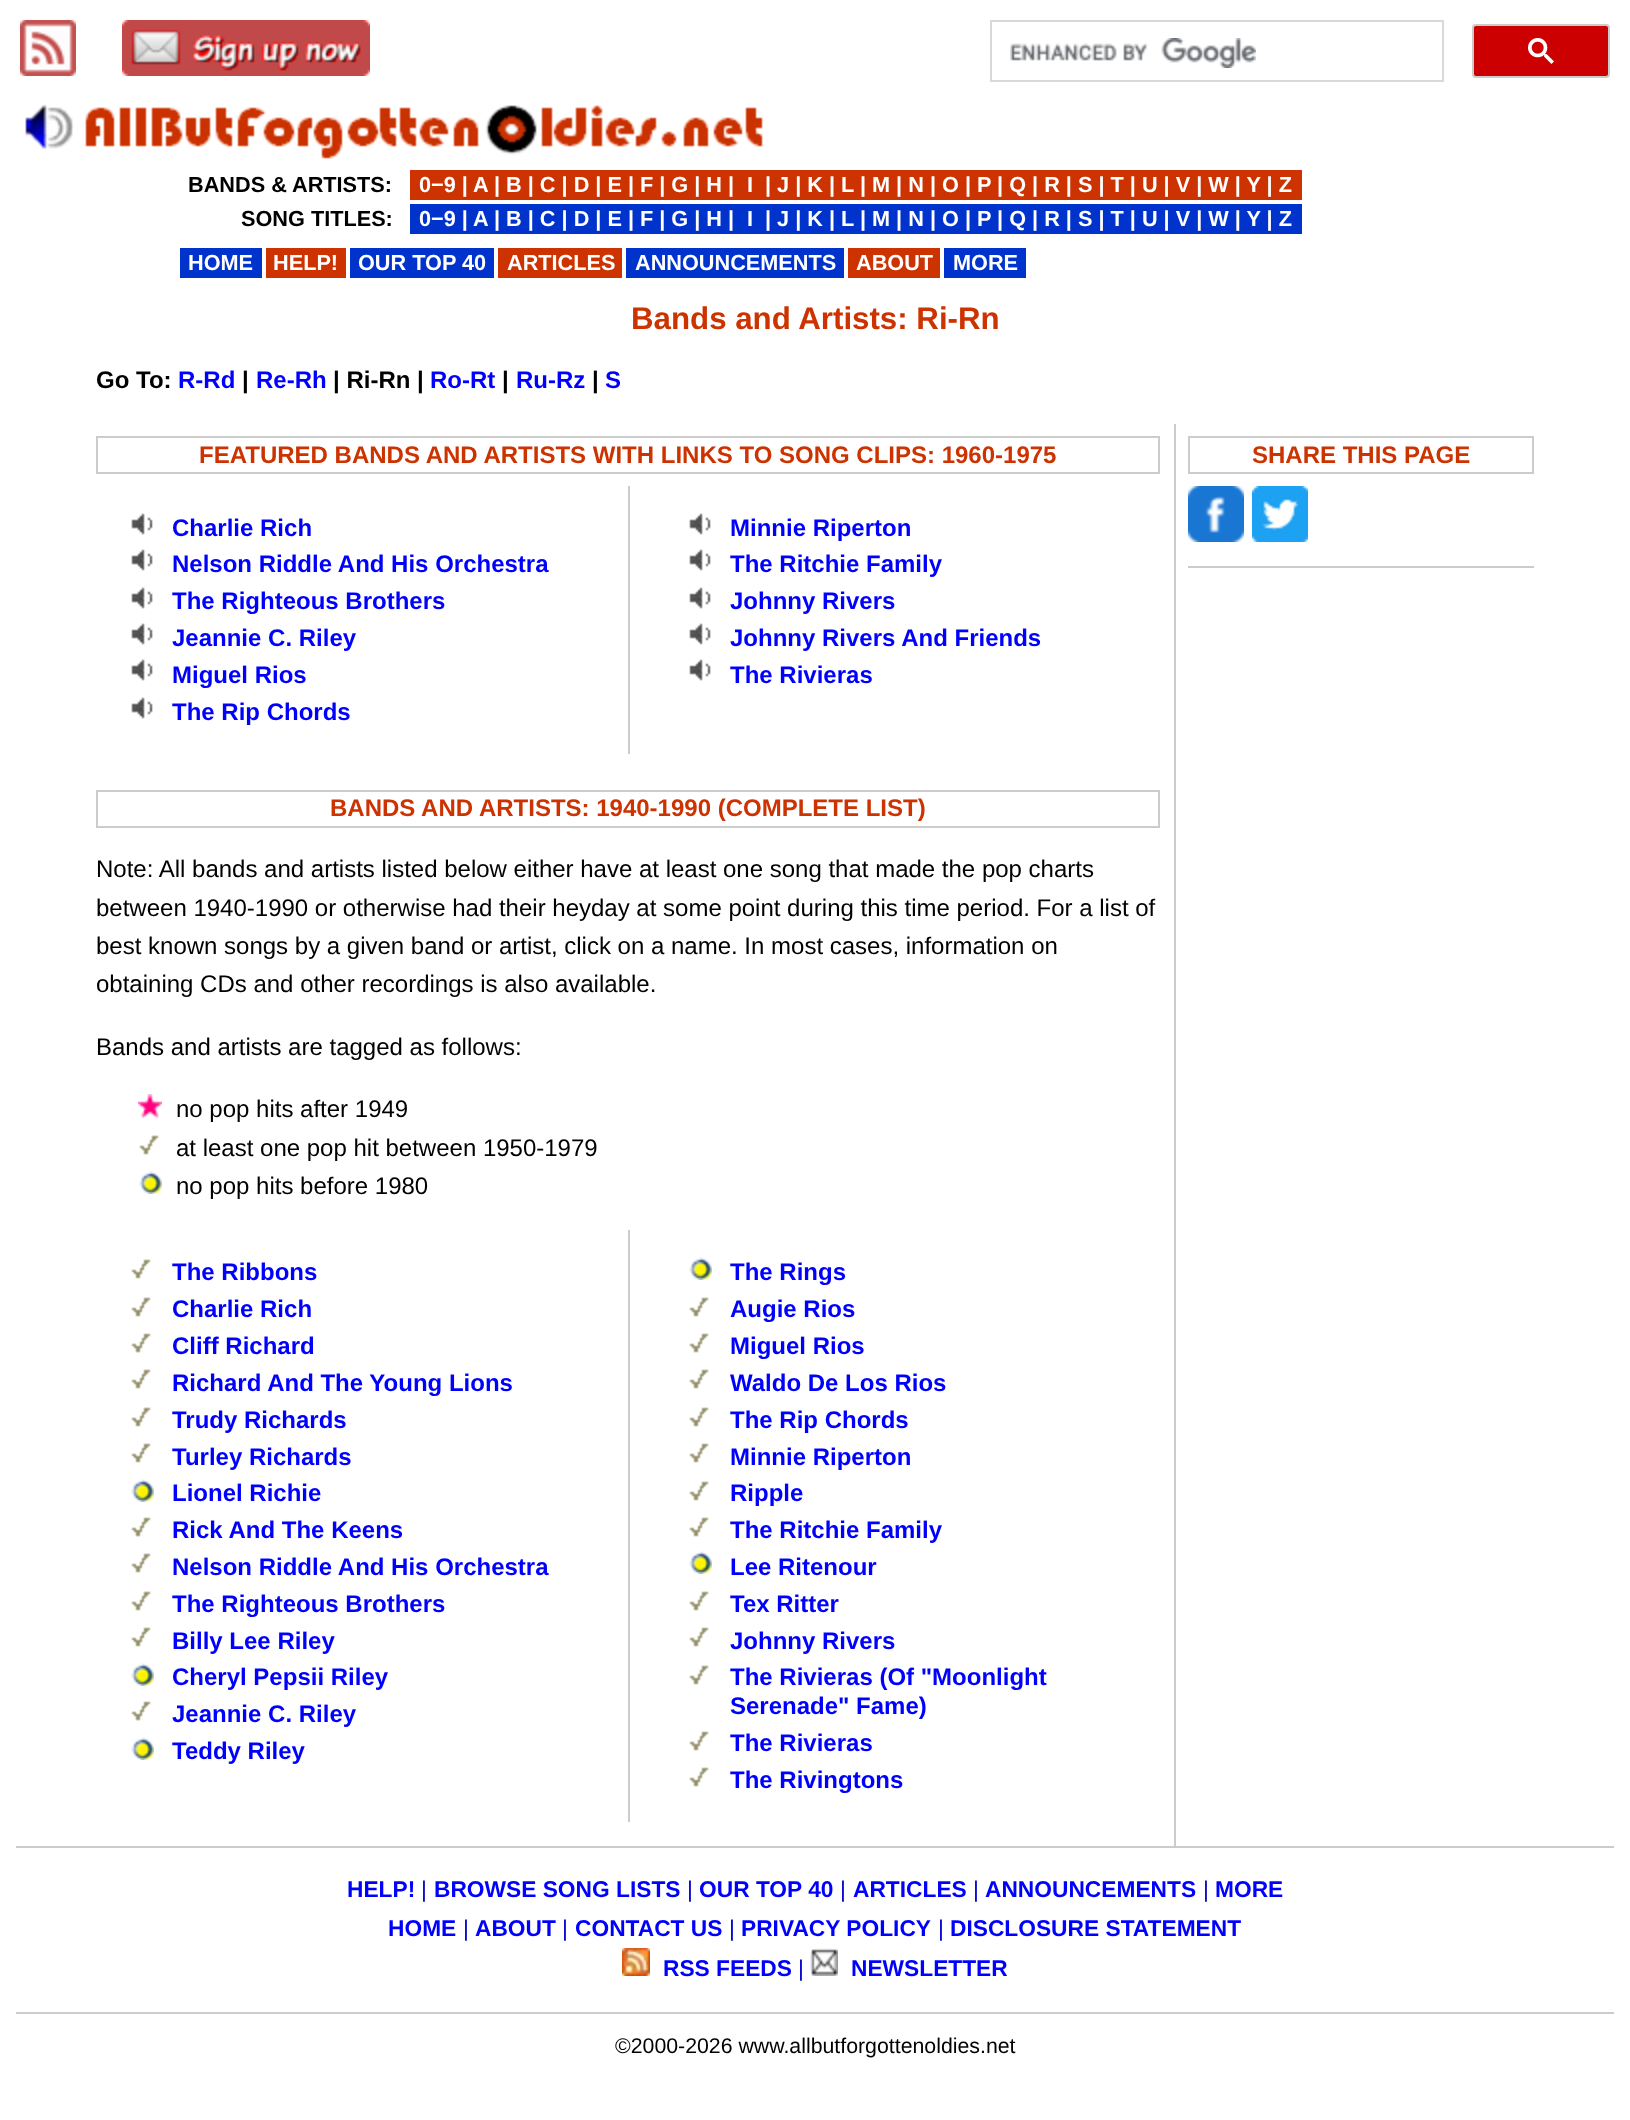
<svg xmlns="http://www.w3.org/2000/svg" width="1630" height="2120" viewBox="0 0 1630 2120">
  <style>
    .t1 { font: bold 21.7px Liberation Sans; fill: #000; }
    .t2 { font: bold 21.7px Liberation Sans; fill: #fff; }
    .t3 { font: bold 22.75px Liberation Sans; fill: #00f; }
    .t4 { font: 22.75px Liberation Sans; fill: #00c; }
    .t5 { font: 21.3px Liberation Sans; fill: #000; }
    .t6 { font: bold 31.25px Liberation Sans; fill: #c30; }
    .t7 { font: bold 24px Liberation Sans; fill: #000; }
    .t8 { font: bold 24px Liberation Sans; fill: #00f; }
    .t9 { font: bold 24px Liberation Sans; fill: #c30; }
    .t10 { font: 24px Liberation Sans; fill: #000; }
  </style>
  <rect width="100%" height="100%" fill="#fff"/>
  <image x="20" y="20" width="56" height="56" href="images/1.png"/>
  <image x="122" y="20" width="248" height="56" href="images/2.png"/>
  <rect x="991" y="21" width="452" height="60" fill="none" stroke="#d9d9d9" stroke-width="2"/>
  <image x="1010" y="38" width="246" height="30" href="images/3.png"/>
  <rect x="1473" y="25" width="136" height="52" rx="3" fill="#c00" stroke="#ccc" stroke-width="2"/>
  <image x="1528" y="38" width="26" height="26" href="images/4.png"/>
  <image x="25" y="104" width="738" height="55" href="images/5.png"/>
  <text x="188" y="192" class="t1">BANDS &amp; ARTISTS:</text>
  <text x="241" y="226" class="t1">SONG TITLES:</text>
  <rect x="410" y="170" width="892" height="30" fill="#c30"/>
  <text x="419" y="192" class="t2">0−9 | A | B | C | D | E | F | G | H |</text>
  <text x="747" y="192" class="t2">I</text>
  <text x="765" y="192" class="t2">| J | K | L | M | N | O | P | Q | R | S | T | U | V | W | Y | Z</text>
  <rect x="410" y="204" width="892" height="30" fill="#03c"/>
  <text x="419" y="226" class="t2">0−9 | A | B | C | D | E | F | G | H |</text>
  <text x="747" y="226" class="t2">I</text>
  <text x="765" y="226" class="t2">| J | K | L | M | N | O | P | Q | R | S | T | U | V | W | Y | Z</text>
  <rect x="180" y="248" width="82" height="30" fill="#03c"/>
  <text x="188" y="270" class="t2">HOME</text>
  <rect x="266" y="248" width="80" height="30" fill="#c30"/>
  <text x="273" y="270" class="t2">HELP!</text>
  <rect x="350" y="248" width="144" height="30" fill="#03c"/>
  <text x="358" y="270" class="t2">OUR TOP 40</text>
  <rect x="498" y="248" width="124" height="30" fill="#c30"/>
  <text x="507" y="270" class="t2">ARTICLES</text>
  <rect x="626" y="248" width="218" height="30" fill="#03c"/>
  <text x="635" y="270" class="t2">ANNOUNCEMENTS</text>
  <rect x="848" y="248" width="92" height="30" fill="#c30"/>
  <text x="856" y="270" class="t2">ABOUT</text>
  <rect x="944" y="248" width="82" height="30" fill="#03c"/>
  <text x="953" y="270" class="t2">MORE</text>
  <rect x="16" y="1846" width="1598" height="2" fill="#ccc"/>
  <text x="347" y="1897" class="t3">HELP!</text>
  <text x="421" y="1897" class="t4">|</text>
  <text x="434" y="1897" class="t3">BROWSE SONG LISTS</text>
  <text x="687" y="1897" class="t4">|</text>
  <text x="699" y="1897" class="t3">OUR TOP 40</text>
  <text x="840" y="1897" class="t4">|</text>
  <text x="853" y="1897" class="t3">ARTICLES</text>
  <text x="973" y="1897" class="t4">|</text>
  <text x="985" y="1897" class="t3">ANNOUNCEMENTS</text>
  <text x="1203" y="1897" class="t4">|</text>
  <text x="1215" y="1897" class="t3">MORE</text>
  <text x="388" y="1936" class="t3">HOME</text>
  <text x="463" y="1936" class="t4">|</text>
  <text x="475" y="1936" class="t3">ABOUT</text>
  <text x="562" y="1936" class="t4">|</text>
  <text x="575" y="1936" class="t3">CONTACT US</text>
  <text x="729" y="1936" class="t4">|</text>
  <text x="741" y="1936" class="t3">PRIVACY POLICY</text>
  <text x="938" y="1936" class="t4">|</text>
  <text x="950" y="1936" class="t3">DISCLOSURE STATEMENT</text>
  <image x="622" y="1948" width="28" height="28" href="images/6.png"/>
  <text x="663" y="1976" class="t3">RSS FEEDS</text>
  <text x="798" y="1976" class="t4">|</text>
  <image x="810" y="1948" width="28" height="28" href="images/7.png"/>
  <text x="851" y="1976" class="t3">NEWSLETTER</text>
  <rect x="16" y="2012" width="1598" height="2" fill="#ccc"/>
  <text x="615" y="2053" class="t5">©2000-2026 www.allbutforgottenoldies.net</text>
  <text x="631" y="329" class="t6">Bands and Artists: Ri-Rn</text>
  <text x="96" y="388" class="t7">Go To:</text>
  <text x="178" y="388" class="t8">R-Rd</text>
  <text x="242" y="388" class="t7">|</text>
  <text x="256" y="388" class="t8">Re-Rh</text>
  <text x="333" y="388" class="t7">| Ri-Rn |</text>
  <text x="430" y="388" class="t8">Ro-Rt</text>
  <text x="502" y="388" class="t7">|</text>
  <text x="516" y="388" class="t8">Ru-Rz</text>
  <text x="592" y="388" class="t7">|</text>
  <text x="605" y="388" class="t8">S</text>
  <rect x="1174" y="424" width="2" height="1422" fill="#ccc"/>
  <rect x="97" y="437" width="1062" height="36" fill="none" stroke="#ccc" stroke-width="2"/>
  <text x="199" y="463" class="t9">FEATURED BANDS AND ARTISTS WITH LINKS TO SONG CLIPS: 1960-1975</text>
  <image x="131" y="513" width="22" height="22" href="images/8.png"/>
  <text x="172" y="536" class="t8">Charlie Rich</text>
  <image x="131" y="549" width="22" height="22" href="images/8.png"/>
  <text x="172" y="572" class="t8">Nelson Riddle And His Orchestra</text>
  <image x="131" y="587" width="22" height="22" href="images/8.png"/>
  <text x="172" y="609" class="t8">The Righteous Brothers</text>
  <image x="131" y="623" width="22" height="22" href="images/8.png"/>
  <text x="172" y="646" class="t8">Jeannie C. Riley</text>
  <image x="131" y="659" width="22" height="22" href="images/8.png"/>
  <text x="172" y="683" class="t8">Miguel Rios</text>
  <image x="131" y="697" width="22" height="22" href="images/8.png"/>
  <text x="172" y="720" class="t8">The Rip Chords</text>
  <rect x="628" y="486" width="2" height="268" fill="#ccc"/>
  <image x="689" y="513" width="22" height="22" href="images/8.png"/>
  <text x="730" y="536" class="t8">Minnie Riperton</text>
  <image x="689" y="549" width="22" height="22" href="images/8.png"/>
  <text x="730" y="572" class="t8">The Ritchie Family</text>
  <image x="689" y="587" width="22" height="22" href="images/8.png"/>
  <text x="730" y="609" class="t8">Johnny Rivers</text>
  <image x="689" y="623" width="22" height="22" href="images/8.png"/>
  <text x="730" y="646" class="t8">Johnny Rivers And Friends</text>
  <image x="689" y="659" width="22" height="22" href="images/8.png"/>
  <text x="730" y="683" class="t8">The Rivieras</text>
  <rect x="97" y="791" width="1062" height="36" fill="none" stroke="#ccc" stroke-width="2"/>
  <text x="330" y="816" class="t9">BANDS AND ARTISTS: 1940-1990 (COMPLETE LIST)</text>
  <text x="96" y="877" class="t10">Note: All bands and artists listed below either have at least one song that made the pop charts</text>
  <text x="96" y="916" class="t10">between 1940-1990 or otherwise had their heyday at some point during this time period. For a list of</text>
  <text x="96" y="954" class="t10">best known songs by a given band or artist, click on a name. In most cases, information on</text>
  <text x="96" y="992" class="t10">obtaining CDs and other recordings is also available.</text>
  <text x="96" y="1055" class="t10">Bands and artists are tagged as follows:</text>
  <image x="138" y="1094" width="24" height="24" href="images/9.png"/>
  <text x="176" y="1117" class="t10">no pop hits after 1949</text>
  <image x="139" y="1135" width="20" height="20" href="images/10.png"/>
  <text x="176" y="1156" class="t10">at least one pop hit between 1950-1979</text>
  <image x="139" y="1171" width="23" height="23" href="images/11.png"/>
  <text x="176" y="1194" class="t10">no pop hits before 1980</text>
  <image x="131" y="1259" width="20" height="20" href="images/10.png"/>
  <text x="172" y="1280" class="t8">The Ribbons</text>
  <image x="131" y="1297" width="20" height="20" href="images/10.png"/>
  <text x="172" y="1317" class="t8">Charlie Rich</text>
  <image x="131" y="1333" width="20" height="20" href="images/10.png"/>
  <text x="172" y="1354" class="t8">Cliff Richard</text>
  <image x="131" y="1369" width="20" height="20" href="images/10.png"/>
  <text x="172" y="1391" class="t8">Richard And The Young Lions</text>
  <image x="131" y="1407" width="20" height="20" href="images/10.png"/>
  <text x="172" y="1428" class="t8">Trudy Richards</text>
  <image x="131" y="1443" width="20" height="20" href="images/10.png"/>
  <text x="172" y="1465" class="t8">Turley Richards</text>
  <image x="131" y="1479" width="23" height="23" href="images/11.png"/>
  <text x="172" y="1501" class="t8">Lionel Richie</text>
  <image x="131" y="1517" width="20" height="20" href="images/10.png"/>
  <text x="172" y="1538" class="t8">Rick And The Keens</text>
  <image x="131" y="1553" width="20" height="20" href="images/10.png"/>
  <text x="172" y="1575" class="t8">Nelson Riddle And His Orchestra</text>
  <image x="131" y="1591" width="20" height="20" href="images/10.png"/>
  <text x="172" y="1612" class="t8">The Righteous Brothers</text>
  <image x="131" y="1627" width="20" height="20" href="images/10.png"/>
  <text x="172" y="1649" class="t8">Billy Lee Riley</text>
  <image x="131" y="1663" width="23" height="23" href="images/11.png"/>
  <text x="172" y="1685" class="t8">Cheryl Pepsii Riley</text>
  <image x="131" y="1701" width="20" height="20" href="images/10.png"/>
  <text x="172" y="1722" class="t8">Jeannie C. Riley</text>
  <image x="131" y="1737" width="23" height="23" href="images/11.png"/>
  <text x="172" y="1759" class="t8">Teddy Riley</text>
  <rect x="628" y="1230" width="2" height="592" fill="#ccc"/>
  <image x="689" y="1257" width="23" height="23" href="images/11.png"/>
  <text x="730" y="1280" class="t8">The Rings</text>
  <image x="689" y="1297" width="20" height="20" href="images/10.png"/>
  <text x="730" y="1317" class="t8">Augie Rios</text>
  <image x="689" y="1333" width="20" height="20" href="images/10.png"/>
  <text x="730" y="1354" class="t8">Miguel Rios</text>
  <image x="689" y="1369" width="20" height="20" href="images/10.png"/>
  <text x="730" y="1391" class="t8">Waldo De Los Rios</text>
  <image x="689" y="1407" width="20" height="20" href="images/10.png"/>
  <text x="730" y="1428" class="t8">The Rip Chords</text>
  <image x="689" y="1443" width="20" height="20" href="images/10.png"/>
  <text x="730" y="1465" class="t8">Minnie Riperton</text>
  <image x="689" y="1481" width="20" height="20" href="images/10.png"/>
  <text x="730" y="1501" class="t8">Ripple</text>
  <image x="689" y="1517" width="20" height="20" href="images/10.png"/>
  <text x="730" y="1538" class="t8">The Ritchie Family</text>
  <image x="689" y="1551" width="23" height="23" href="images/11.png"/>
  <text x="730" y="1575" class="t8">Lee Ritenour</text>
  <image x="689" y="1591" width="20" height="20" href="images/10.png"/>
  <text x="730" y="1612" class="t8">Tex Ritter</text>
  <image x="689" y="1627" width="20" height="20" href="images/10.png"/>
  <text x="730" y="1649" class="t8">Johnny Rivers</text>
  <image x="689" y="1665" width="20" height="20" href="images/10.png"/>
  <text x="730" y="1685" class="t8">The Rivieras (Of "Moonlight</text>
  <text x="730" y="1714" class="t8">Serenade" Fame)</text>
  <image x="689" y="1731" width="20" height="20" href="images/10.png"/>
  <text x="730" y="1751" class="t8">The Rivieras</text>
  <image x="689" y="1767" width="20" height="20" href="images/10.png"/>
  <text x="730" y="1788" class="t8">The Rivingtons</text>
  <rect x="1189" y="437" width="344" height="36" fill="none" stroke="#ccc" stroke-width="2"/>
  <text x="1252" y="463" class="t9">SHARE THIS PAGE</text>
  <image x="1188" y="486" width="56" height="56" href="images/12.png"/>
  <image x="1252" y="486" width="56" height="56" href="images/13.png"/>
  <rect x="1188" y="566" width="346" height="2" fill="#ccc"/>
</svg>
